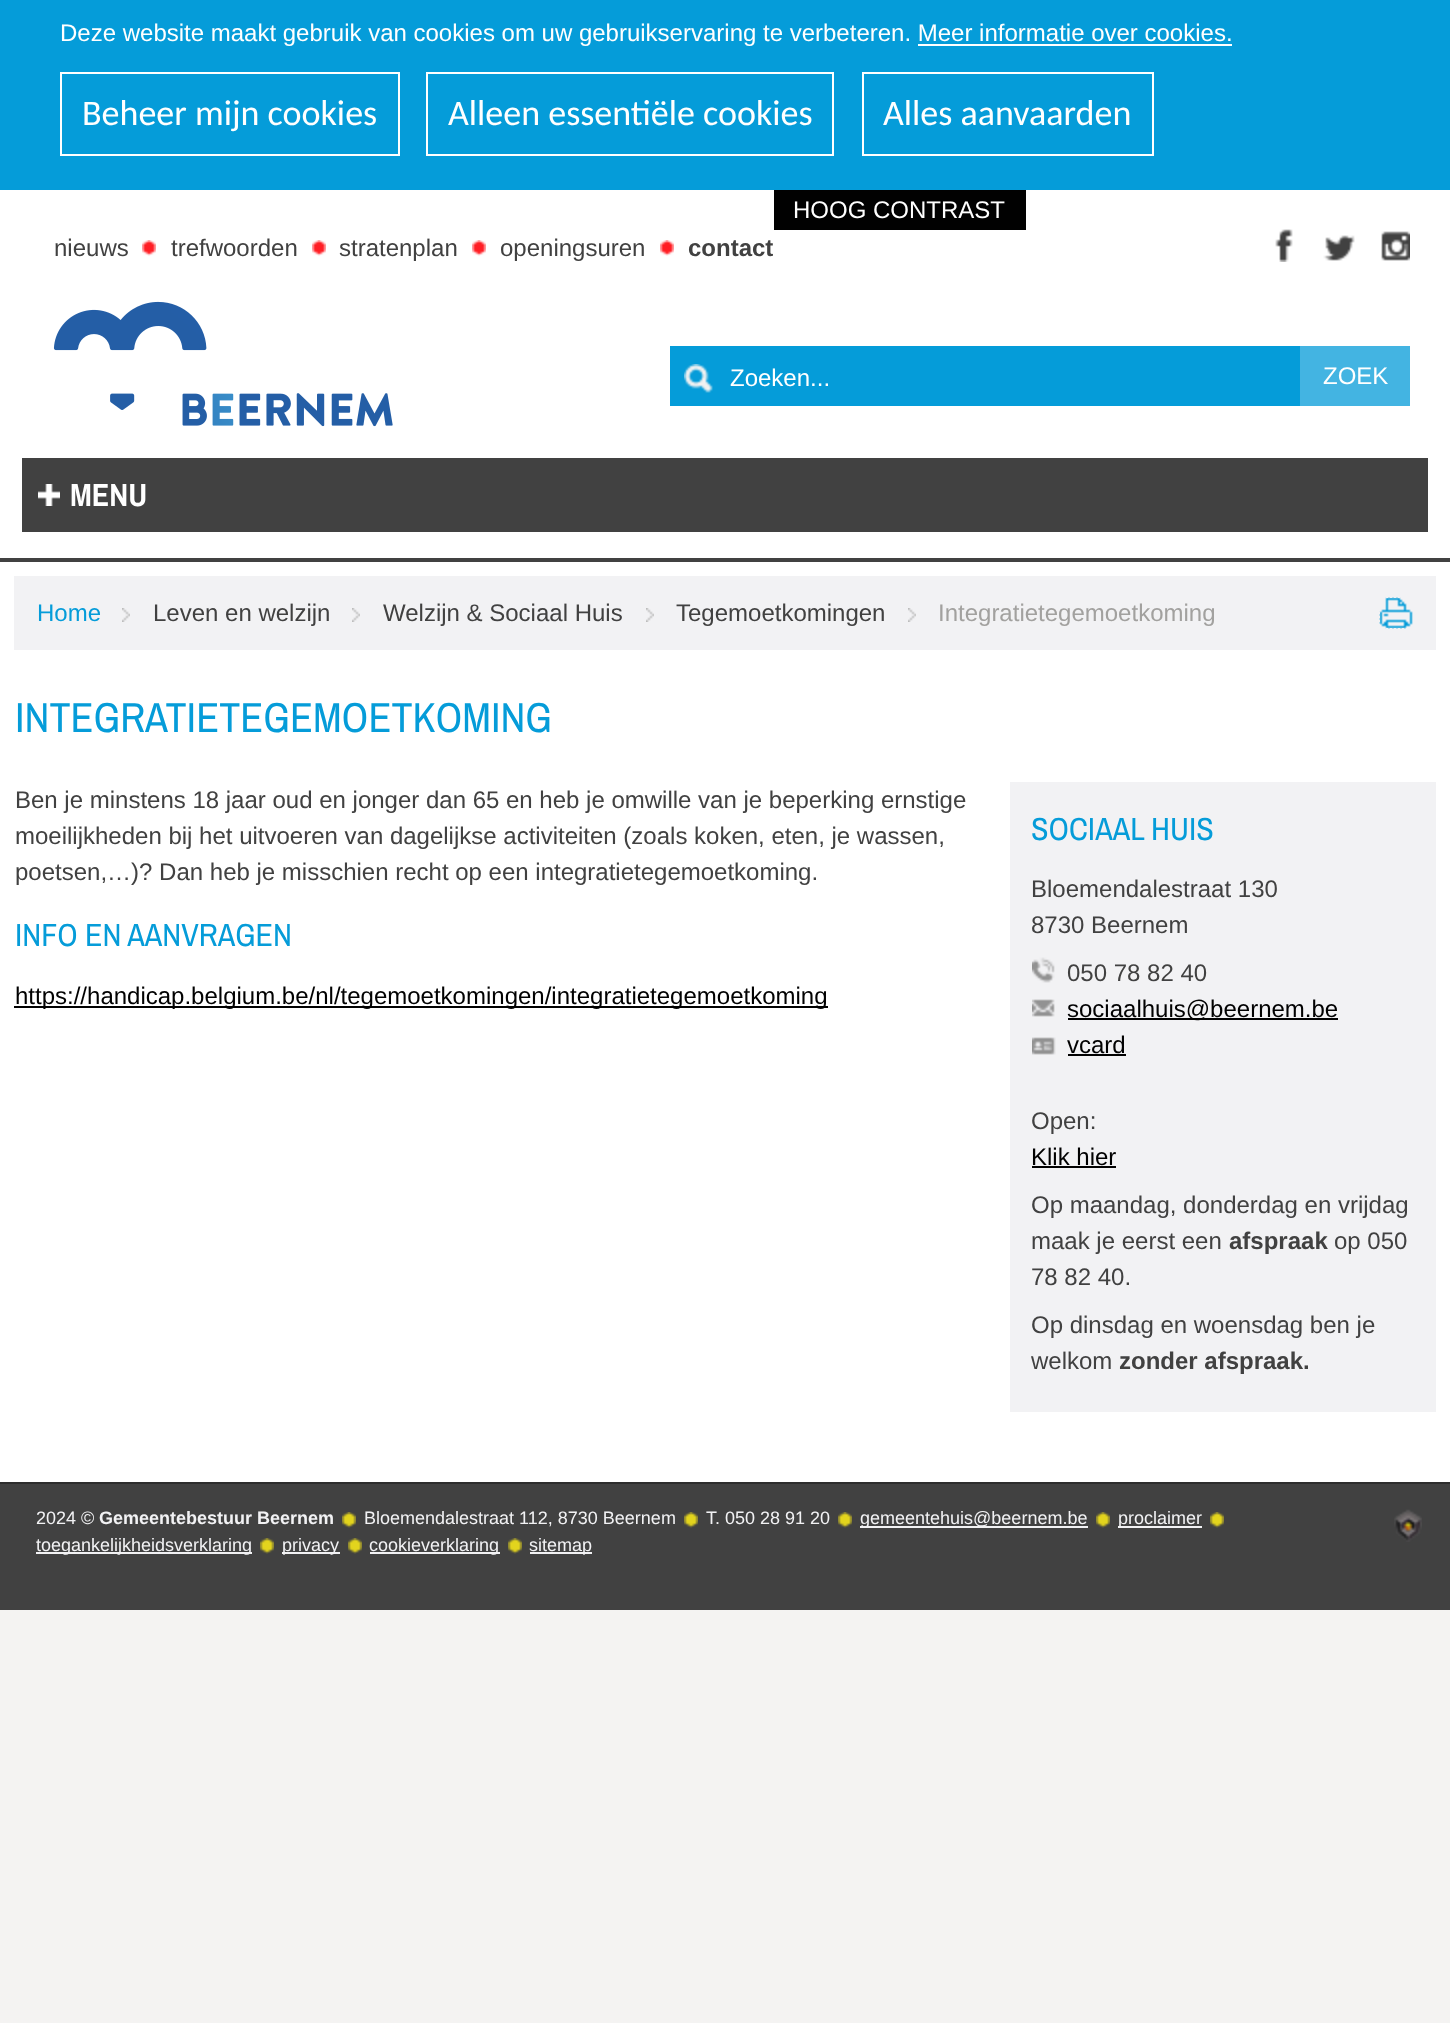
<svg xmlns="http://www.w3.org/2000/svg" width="1450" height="2023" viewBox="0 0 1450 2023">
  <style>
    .t1 { font: 24px Liberation Sans; fill: #fff; }
    .t2 { font: 36px Carlito; fill: #fff; }
    .t3 { font: 24px Liberation Sans; fill: #414141; }
    .t4 { font: bold 24px Liberation Sans; fill: #414141; }
    .t5 { font: bold 32px Archivo Narrow; fill: #fff; }
    .t6 { font: 24px Liberation Sans; fill: #059cd9; }
    .t7 { font: 24px Liberation Sans; fill: #a2a19f; }
    .t8 { font: 42px Archivo Narrow; fill: #059cd9; }
    .t9 { font: 32px Archivo Narrow; fill: #059cd9; }
    .t10 { font: 24px Liberation Sans; fill: #010101; }
    .t11 { font: 18px Liberation Sans; fill: #f2f2f4; }
    .t12 { font: bold 18px Liberation Sans; fill: #f2f2f4; }
  </style>
  <rect width="100%" height="100%" fill="#f4f3f2"/>
  <rect x="0" y="0" width="1450" height="190" fill="#059cd9"/>
  <text x="60" y="41" class="t1">Deze website maakt gebruik van cookies om uw gebruikservaring te verbeteren. Meer informatie over cookies.</text>
  <rect x="918" y="44" width="314" height="2" fill="#fff"/>
  <rect x="61" y="73" width="338" height="82" fill="none" stroke="#fff" stroke-width="2"/>
  <text x="82" y="125" class="t2">Beheer mijn cookies</text>
  <rect x="427" y="73" width="406" height="82" fill="none" stroke="#fff" stroke-width="2"/>
  <text x="448" y="125" class="t2">Alleen essentiële cookies</text>
  <rect x="863" y="73" width="290" height="82" fill="none" stroke="#fff" stroke-width="2"/>
  <text x="883" y="125" class="t2">Alles aanvaarden</text>
  <rect x="0" y="190" width="1450" height="368" fill="#fff"/>
  <rect x="774" y="190" width="252" height="40" fill="#010101"/>
  <text x="793" y="218" class="t1">HOOG CONTRAST</text>
  <text x="54" y="256" class="t3">nieuws</text>
  <image x="142" y="240" width="14" height="16" href="images/1.png"/>
  <text x="171" y="256" class="t3">trefwoorden</text>
  <image x="312" y="240" width="14" height="16" href="images/1.png"/>
  <text x="339" y="256" class="t3">stratenplan</text>
  <image x="472" y="240" width="14" height="16" href="images/1.png"/>
  <text x="500" y="256" class="t3">openingsuren</text>
  <image x="660" y="240" width="14" height="16" href="images/1.png"/>
  <text x="688" y="256" class="t4">contact</text>
  <image x="1275" y="229" width="18" height="33" href="images/2.png"/>
  <image x="1323" y="235" width="32" height="26" href="images/3.png"/>
  <image x="1381" y="231" width="29" height="30" href="images/4.png"/>
  <image x="53" y="301" width="340" height="126" href="images/5.png"/>
  <rect x="670" y="346" width="630" height="60" fill="#059cd9"/>
  <image x="684" y="364" width="29" height="29" href="images/6.png"/>
  <text x="730" y="386" class="t1">Zoeken...</text>
  <rect x="1300" y="346" width="110" height="60" fill="#43b4e2"/>
  <text x="1323" y="384" class="t1">ZOEK</text>
  <rect x="22" y="458" width="1406" height="74" fill="#414141"/>
  <image x="38" y="484" width="22" height="22" href="images/7.png"/>
  <text x="70" y="506" class="t5">MENU</text>
  <rect x="0" y="558" width="1450" height="4" fill="#414141"/>
  <rect x="0" y="562" width="1450" height="920" fill="#fff"/>
  <rect x="14" y="576" width="1422" height="74" fill="#f2f2f4"/>
  <text x="37" y="621" class="t6">Home</text>
  <image x="122" y="608" width="8" height="14" href="images/8.png"/>
  <text x="153" y="621" class="t3">Leven en welzijn</text>
  <image x="352" y="608" width="8" height="14" href="images/8.png"/>
  <text x="383" y="621" class="t3">Welzijn &amp; Sociaal Huis</text>
  <image x="646" y="608" width="8" height="14" href="images/8.png"/>
  <text x="676" y="621" class="t3">Tegemoetkomingen</text>
  <image x="908" y="608" width="8" height="14" href="images/8.png"/>
  <text x="938" y="621" class="t7">Integratietegemoetkoming</text>
  <image x="1379" y="597" width="34" height="32" href="images/9.png"/>
  <path d="M1378 597H1416M1378 629H1416M1379 596V630" fill="none" stroke="#f2f2f4" stroke-width="2" stroke-dasharray="2 2"/>
  <text x="15" y="732" class="t8">INTEGRATIETEGEMOETKOMING</text>
  <text x="15" y="808" class="t3">Ben je minstens 18 jaar oud en jonger dan 65 en heb je omwille van je beperking ernstige</text>
  <text x="15" y="844" class="t3">moeilijkheden bij het uitvoeren van dagelijkse activiteiten (zoals koken, eten, je wassen,</text>
  <text x="15" y="880" class="t3">poetsen,…)? Dan heb je misschien recht op een integratietegemoetkoming.</text>
  <text x="15" y="946" class="t9">INFO EN AANVRAGEN</text>
  <rect x="14" y="1006" width="814" height="2" fill="#010101"/>
  <text x="15" y="1004" class="t10">https://handicap.belgium.be/nl/tegemoetkomingen/integratietegemoetkoming</text>
  <rect x="1010" y="782" width="426" height="630" fill="#f2f2f4"/>
  <text x="1031" y="840" class="t9">SOCIAAL HUIS</text>
  <text x="1031" y="897" class="t3">Bloemendalestraat 130</text>
  <text x="1031" y="933" class="t3">8730 Beernem</text>
  <image x="1032" y="957" width="23" height="26" href="images/10.png"/>
  <text x="1067" y="981" class="t3">050 78 82 40</text>
  <image x="1032" y="999" width="23" height="18" href="images/11.png"/>
  <rect x="1068" y="1018" width="270" height="2" fill="#010101"/>
  <text x="1067" y="1017" class="t10">sociaalhuis@beernem.be</text>
  <image x="1032" y="1037" width="24" height="18" href="images/12.png"/>
  <text x="1067" y="1053" class="t10">vcard</text>
  <rect x="1068" y="1054" width="58" height="2" fill="#010101"/>
  <text x="1031" y="1129" class="t3">Open:</text>
  <text x="1031" y="1165" class="t10">Klik hier</text>
  <rect x="1032" y="1166" width="84" height="2" fill="#010101"/>
  <text x="1031" y="1213" class="t3">Op maandag, donderdag en vrijdag</text>
  <text x="1031" y="1249" class="t3">maak je eerst een</text>
  <text x="1229" y="1249" class="t4">afspraak</text>
  <text x="1334" y="1249" class="t3">op 050</text>
  <text x="1031" y="1285" class="t3">78 82 40.</text>
  <text x="1031" y="1333" class="t3">Op dinsdag en woensdag ben je</text>
  <text x="1031" y="1369" class="t3">welkom</text>
  <text x="1119" y="1369" class="t4">zonder afspraak.</text>
  <rect x="0" y="1484" width="1450" height="126" fill="#414141"/>
  <rect x="0" y="1482" width="1450" height="2" fill="#2d2d2d"/>
  <image x="342" y="1512" width="14" height="16" href="images/13.png"/>
  <text x="36" y="1524" class="t11">2024 ©</text>
  <text x="99" y="1524" class="t12">Gemeentebestuur Beernem</text>
  <image x="684" y="1512" width="14" height="16" href="images/13.png"/>
  <text x="364" y="1524" class="t11">Bloemendalestraat 112, 8730 Beernem</text>
  <image x="838" y="1512" width="14" height="16" href="images/13.png"/>
  <text x="706" y="1524" class="t11">T. 050 28 91 20</text>
  <image x="1096" y="1512" width="14" height="16" href="images/13.png"/>
  <rect x="860" y="1526" width="228" height="2" fill="#f2f2f4"/>
  <text x="860" y="1524" class="t11">gemeentehuis@beernem.be</text>
  <image x="1210" y="1512" width="14" height="16" href="images/13.png"/>
  <rect x="1118" y="1526" width="84" height="2" fill="#f2f2f4"/>
  <text x="1118" y="1524" class="t11">proclaimer</text>
  <image x="1394" y="1509" width="28" height="33" href="images/14.png"/>
  <image x="260" y="1538" width="14" height="16" href="images/13.png"/>
  <rect x="36" y="1552" width="216" height="2" fill="#f2f2f4"/>
  <text x="36" y="1551" class="t11">toegankelijkheidsverklaring</text>
  <image x="348" y="1538" width="14" height="16" href="images/13.png"/>
  <rect x="282" y="1552" width="58" height="2" fill="#f2f2f4"/>
  <text x="282" y="1551" class="t11">privacy</text>
  <image x="508" y="1538" width="14" height="16" href="images/13.png"/>
  <rect x="370" y="1552" width="130" height="2" fill="#f2f2f4"/>
  <text x="369" y="1551" class="t11">cookieverklaring</text>
  <rect x="530" y="1552" width="62" height="2" fill="#f2f2f4"/>
  <text x="529" y="1551" class="t11">sitemap</text>
</svg>
